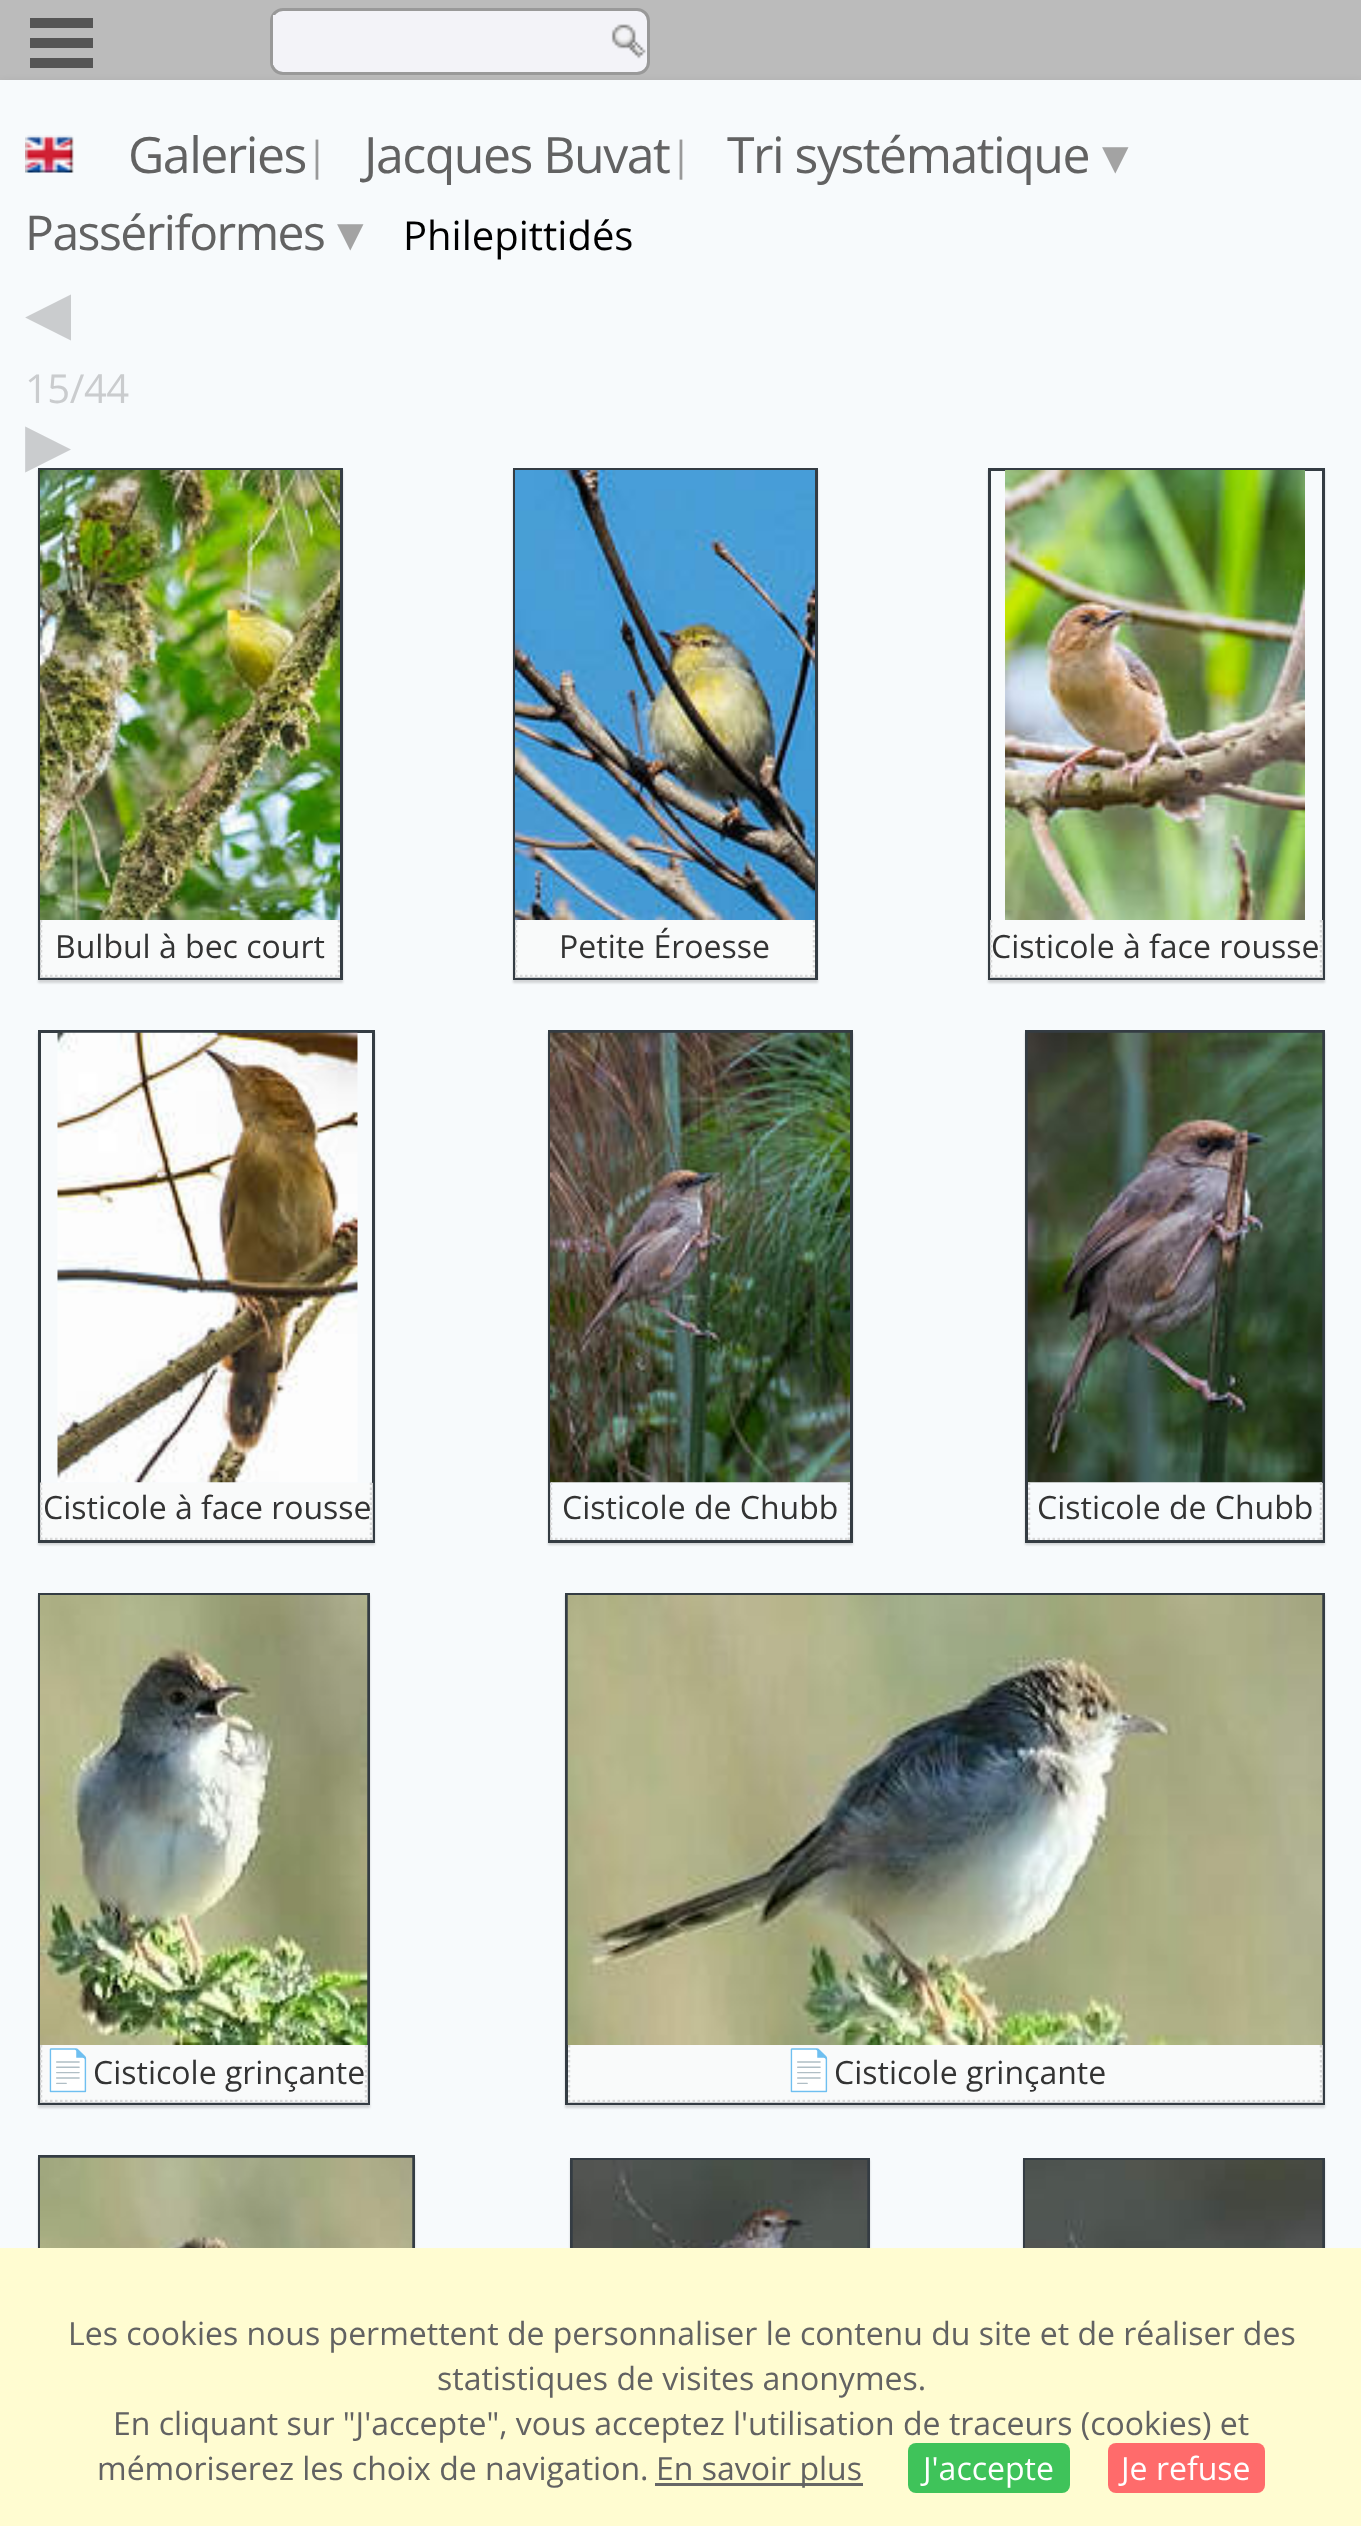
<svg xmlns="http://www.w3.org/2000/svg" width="1361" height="2526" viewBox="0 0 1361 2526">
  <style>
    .t1 { font: 50px Open Sans; letter-spacing: -1.5px; fill: #626262; }
    .t2 { font: 40px Open Sans; fill: #999; }
    .t3 { font: 45px Liberation Sans; fill: #a3a3a3; }
    .t4 { font: 48px Open Sans; letter-spacing: -1.5px; fill: #626262; }
    .t5 { font: 40px Open Sans; fill: #000; }
    .t6 { font: 60px DejaVu Sans; letter-spacing: -2px; fill: #caccce; }
    .t7 { font: 40px Open Sans; letter-spacing: -0.5px; fill: #caccce; }
    .t8 { font: 32px Open Sans; fill: #333; }
    .t9 { font: 40px Noto Color Emoji; fill: #333; }
    .t10 { font: 32px Open Sans; fill: #626262; }
    .t11 { font: 32px Open Sans; fill: #fff; }
  </style>
  <defs>
    <linearGradient id="g1" gradientUnits="userSpaceOnUse" x1="681" y1="0" x2="681" y2="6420"><stop offset="0" stop-color="#bbb"/><stop offset="0.1" stop-color="#bbb"/><stop offset="0.18" stop-color="#ddd"/><stop offset="0.9" stop-color="#fff"/><stop offset="1" stop-color="#fff"/></linearGradient>
    <clipPath id="clip1"><path d="M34 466H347V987H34ZM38 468H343V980H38Z" clip-rule="evenodd"/></clipPath>
    <clipPath id="clip2"><rect x="40" y="470" width="300" height="508"/></clipPath>
    <clipPath id="clip3"><path d="M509 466H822V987H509ZM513 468H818V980H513Z" clip-rule="evenodd"/></clipPath>
    <clipPath id="clip4"><rect x="515" y="470" width="300" height="508"/></clipPath>
    <clipPath id="clip5"><path d="M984 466H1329V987H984ZM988 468H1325V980H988Z" clip-rule="evenodd"/></clipPath>
    <clipPath id="clip6"><rect x="990" y="470" width="333" height="508"/></clipPath>
    <clipPath id="clip7"><path d="M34 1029H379V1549H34ZM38 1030H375V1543H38Z" clip-rule="evenodd"/></clipPath>
    <clipPath id="clip8"><rect x="40" y="1033" width="333" height="507"/></clipPath>
    <clipPath id="clip9"><path d="M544 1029H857V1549H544ZM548 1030H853V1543H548Z" clip-rule="evenodd"/></clipPath>
    <clipPath id="clip10"><rect x="550" y="1033" width="300" height="507"/></clipPath>
    <clipPath id="clip11"><path d="M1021 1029H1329V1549H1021ZM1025 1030H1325V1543H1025Z" clip-rule="evenodd"/></clipPath>
    <clipPath id="clip12"><rect x="1028" y="1033" width="295" height="507"/></clipPath>
    <clipPath id="clip13"><path d="M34 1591H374V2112H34ZM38 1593H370V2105H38Z" clip-rule="evenodd"/></clipPath>
    <clipPath id="clip14"><rect x="40" y="1595" width="328" height="508"/></clipPath>
    <clipPath id="clip15"><path d="M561 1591H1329V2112H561ZM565 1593H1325V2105H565Z" clip-rule="evenodd"/></clipPath>
    <clipPath id="clip16"><rect x="568" y="1595" width="755" height="508"/></clipPath>
  </defs>
  <rect width="100%" height="100%" fill="#fff"/>
  <rect x="0" y="0" width="1361" height="80" fill="url(#g1)"/>
  <rect x="30" y="58" width="63" height="10" fill="#555"/>
  <rect x="30" y="38" width="63" height="10" fill="#555"/>
  <rect x="30" y="18" width="63" height="10" fill="#555"/>
  <rect x="0" y="83" width="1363" height="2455" fill="#0000001f" filter="blur(4px)"/>
  <rect x="271.5" y="9.5" width="377" height="64" rx="11.5" fill="#f3f3f8" stroke="#999" stroke-width="3"/>
  <rect x="273" y="15" width="2" height="50" fill="#f3f3f8"/>
  <image x="611" y="24" width="35" height="35" href="images/1.png"/>
  <rect x="0" y="80" width="1361" height="2168" fill="#f7fafc"/>
  <image x="25" y="135" width="49" height="38" href="images/2.png"/>
  <text x="128" y="173" class="t1">Galeries</text>
  <text x="306" y="170" class="t2">|</text>
  <text x="364" y="173" class="t1">Jacques Buvat</text>
  <text x="670" y="170" class="t2">|</text>
  <text x="727" y="173" class="t1">Tri systématique</text>
  <text x="1093" y="173" class="t3">▼</text>
  <text x="25" y="250" class="t4">Passériformes</text>
  <text x="328" y="250" class="t3">▼</text>
  <text x="403" y="250" class="t5">Philepittidés</text>
  <text x="25" y="333" class="t6">◀</text>
  <text x="25" y="403" class="t7">15/44</text>
  <text x="25" y="465" class="t6">▶</text>
  <g clip-path="url(#clip1)">
    <rect x="38" y="470" width="305" height="513" fill="#00000026" filter="blur(1px)"/>
  </g>
  <rect x="39.5" y="469.5" width="302" height="509" fill="none" stroke="#343c43" stroke-width="3"/>
  <image x="40" y="470" width="300" height="450" href="images/3.png"/>
  <rect x="40" y="920" width="300" height="58" fill="#fafafabf"/>
  <g clip-path="url(#clip2)">
    <path d="M339 920V977.5" fill="none" stroke="#dadada" stroke-width="2.5" stroke-dasharray="2.5 2.5"/>
  </g>
  <path d="M40 976H340" fill="none" stroke="#dadada" stroke-width="2.5" stroke-dasharray="2.5 2.5"/>
  <g clip-path="url(#clip2)">
    <path d="M41 920V977.5" fill="none" stroke="#dadada" stroke-width="2.5" stroke-dasharray="2.5 2.5"/>
  </g>
  <text x="55" y="958" class="t8">Bulbul à bec court</text>
  <g clip-path="url(#clip3)">
    <rect x="513" y="470" width="305" height="513" fill="#00000026" filter="blur(1px)"/>
  </g>
  <rect x="514.5" y="469.5" width="302" height="509" fill="none" stroke="#343c43" stroke-width="3"/>
  <image x="515" y="470" width="300" height="450" href="images/4.png"/>
  <rect x="515" y="920" width="300" height="58" fill="#fafafabf"/>
  <g clip-path="url(#clip4)">
    <path d="M814 920V977.5" fill="none" stroke="#dadada" stroke-width="2.5" stroke-dasharray="2.5 2.5"/>
  </g>
  <path d="M515 976H815" fill="none" stroke="#dadada" stroke-width="2.5" stroke-dasharray="2.5 2.5"/>
  <g clip-path="url(#clip4)">
    <path d="M516 920V977.5" fill="none" stroke="#dadada" stroke-width="2.5" stroke-dasharray="2.5 2.5"/>
  </g>
  <text x="559" y="958" class="t8">Petite Éroesse</text>
  <g clip-path="url(#clip5)">
    <rect x="988" y="470" width="337" height="513" fill="#00000026" filter="blur(1px)"/>
  </g>
  <rect x="989.5" y="469.5" width="334" height="509" fill="none" stroke="#343c43" stroke-width="3"/>
  <image x="1005" y="470" width="300" height="450" href="images/5.png"/>
  <rect x="990" y="920" width="333" height="58" fill="#fafafabf"/>
  <path d="M1321 920V977.5" fill="none" stroke="#dadada" stroke-width="2.5" stroke-dasharray="2.5 2.5"/>
  <path d="M990 976H1322.5" fill="none" stroke="#dadada" stroke-width="2.5" stroke-dasharray="2.5 2.5"/>
  <g clip-path="url(#clip6)">
    <path d="M991 920V977.5" fill="none" stroke="#dadada" stroke-width="2.5" stroke-dasharray="2.5 2.5"/>
  </g>
  <text x="991" y="958" class="t8">Cisticole à face rousse</text>
  <g clip-path="url(#clip7)">
    <rect x="38" y="1033" width="337" height="512" fill="#00000026" filter="blur(1px)"/>
  </g>
  <rect x="39.5" y="1031.5" width="334" height="510" fill="none" stroke="#343c43" stroke-width="3"/>
  <image x="57" y="1032" width="301" height="451" href="images/6.png"/>
  <rect x="40" y="1483" width="333" height="57" fill="#fafafabf"/>
  <path d="M371 1482.5V1540" fill="none" stroke="#dadada" stroke-width="2.5" stroke-dasharray="2.5 2.5"/>
  <g clip-path="url(#clip8)">
    <path d="M40 1539H372.5" fill="none" stroke="#dadada" stroke-width="2.5" stroke-dasharray="2.5 2.5"/>
    <path d="M41 1482.5V1540" fill="none" stroke="#dadada" stroke-width="2.5" stroke-dasharray="2.5 2.5"/>
  </g>
  <text x="43" y="1519" class="t8">Cisticole à face rousse</text>
  <g clip-path="url(#clip9)">
    <rect x="548" y="1033" width="305" height="512" fill="#00000026" filter="blur(1px)"/>
  </g>
  <rect x="549.5" y="1031.5" width="302" height="510" fill="none" stroke="#343c43" stroke-width="3"/>
  <image x="550" y="1032" width="300" height="451" href="images/7.png"/>
  <rect x="550" y="1483" width="1" height="57" fill="#fafafabf"/>
  <g clip-path="url(#clip10)">
    <path d="M849 1482.5V1540" fill="none" stroke="#dadada" stroke-width="2.5" stroke-dasharray="2.5 2.5"/>
    <path d="M550 1539H850" fill="none" stroke="#dadada" stroke-width="2.5" stroke-dasharray="2.5 2.5"/>
    <path d="M551 1482.5V1540" fill="none" stroke="#dadada" stroke-width="2.5" stroke-dasharray="2.5 2.5"/>
  </g>
  <text x="562" y="1519" class="t8">Cisticole de Chubb</text>
  <g clip-path="url(#clip11)">
    <rect x="1025" y="1033" width="300" height="512" fill="#00000026" filter="blur(1px)"/>
  </g>
  <rect x="1026.5" y="1031.5" width="297" height="510" fill="none" stroke="#343c43" stroke-width="3"/>
  <image x="1027" y="1032" width="296" height="451" href="images/8.png"/>
  <rect x="1322" y="1483" width="1" height="57" fill="#fafafabf"/>
  <path d="M1321 1482.5V1540" fill="none" stroke="#dadada" stroke-width="2.5" stroke-dasharray="2.5 2.5"/>
  <g clip-path="url(#clip12)">
    <path d="M1027.5 1539H1322.5" fill="none" stroke="#dadada" stroke-width="2.5" stroke-dasharray="2.5 2.5"/>
    <path d="M1029 1482.5V1540" fill="none" stroke="#dadada" stroke-width="2.5" stroke-dasharray="2.5 2.5"/>
  </g>
  <text x="1037" y="1519" class="t8">Cisticole de Chubb</text>
  <g clip-path="url(#clip13)">
    <rect x="38" y="1595" width="332" height="513" fill="#00000026" filter="blur(1px)"/>
  </g>
  <rect x="39.5" y="1594.5" width="329" height="509" fill="none" stroke="#343c43" stroke-width="3"/>
  <image x="40" y="1595" width="328" height="450" href="images/9.png"/>
  <rect x="40" y="2045" width="328" height="58" fill="#fafafabf"/>
  <path d="M366 2045V2102.5" fill="none" stroke="#dadada" stroke-width="2.5" stroke-dasharray="2.5 2.5"/>
  <path d="M40 2101H367.5" fill="none" stroke="#dadada" stroke-width="2.5" stroke-dasharray="2.5 2.5"/>
  <g clip-path="url(#clip14)">
    <path d="M41 2045V2102.5" fill="none" stroke="#dadada" stroke-width="2.5" stroke-dasharray="2.5 2.5"/>
  </g>
  <text x="43" y="2084" class="t9">📄</text>
  <text x="93" y="2084" class="t8">Cisticole grinçante</text>
  <g clip-path="url(#clip15)">
    <rect x="565" y="1595" width="760" height="513" fill="#00000026" filter="blur(1px)"/>
  </g>
  <rect x="566.5" y="1594.5" width="757" height="509" fill="none" stroke="#343c43" stroke-width="3"/>
  <image x="567" y="1595" width="756" height="450" href="images/10.png"/>
  <rect x="568" y="2045" width="755" height="58" fill="#fafafabf"/>
  <path d="M1321 2045V2102.5" fill="none" stroke="#dadada" stroke-width="2.5" stroke-dasharray="2.5 2.5"/>
  <g clip-path="url(#clip16)">
    <path d="M567.5 2101H1322.5" fill="none" stroke="#dadada" stroke-width="2.5" stroke-dasharray="2.5 2.5"/>
    <path d="M569 2045V2102.5" fill="none" stroke="#dadada" stroke-width="2.5" stroke-dasharray="2.5 2.5"/>
  </g>
  <text x="784" y="2084" class="t9">📄</text>
  <text x="834" y="2084" class="t8">Cisticole grinçante</text>
  <rect x="38" y="2158" width="377" height="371" fill="#00000026" filter="blur(1px)"/>
  <rect x="39.5" y="2156.5" width="374" height="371" fill="none" stroke="#343c43" stroke-width="3"/>
  <image x="40" y="2157" width="373" height="91" href="images/11.png"/>
  <rect x="570" y="2160" width="300" height="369" fill="#00000026" filter="blur(1px)"/>
  <rect x="571.5" y="2159.5" width="297" height="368" fill="none" stroke="#343c43" stroke-width="3"/>
  <image x="572" y="2160" width="296" height="88" href="images/12.png"/>
  <rect x="1023" y="2160" width="302" height="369" fill="#00000026" filter="blur(1px)"/>
  <rect x="1024.5" y="2159.5" width="299" height="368" fill="none" stroke="#343c43" stroke-width="3"/>
  <image x="1025" y="2160" width="298" height="88" href="images/13.png"/>
  <rect x="0" y="2248" width="1361" height="278" fill="#fffcd1"/>
  <text x="68" y="2345" class="t10">Les cookies nous permettent de personnaliser le contenu du site et de réaliser des</text>
  <text x="437" y="2390" class="t10">statistiques de visites anonymes.</text>
  <text x="113" y="2435" class="t10">En cliquant sur "J'accepte", vous acceptez l'utilisation de traceurs (cookies) et</text>
  <text x="97" y="2480" class="t10">mémoriserez les choix de navigation.</text>
  <rect x="655" y="2483" width="208" height="3" fill="#666"/>
  <text x="656" y="2480" class="t10">En savoir plus</text>
  <rect x="908" y="2443" width="162" height="50" rx="8" fill="#3fc35a"/>
  <text x="923" y="2480" class="t11">J'accepte</text>
  <rect x="1108" y="2443" width="157" height="50" rx="8" fill="#ff6b6b"/>
  <text x="1121" y="2480" class="t11">Je refuse</text>
</svg>
